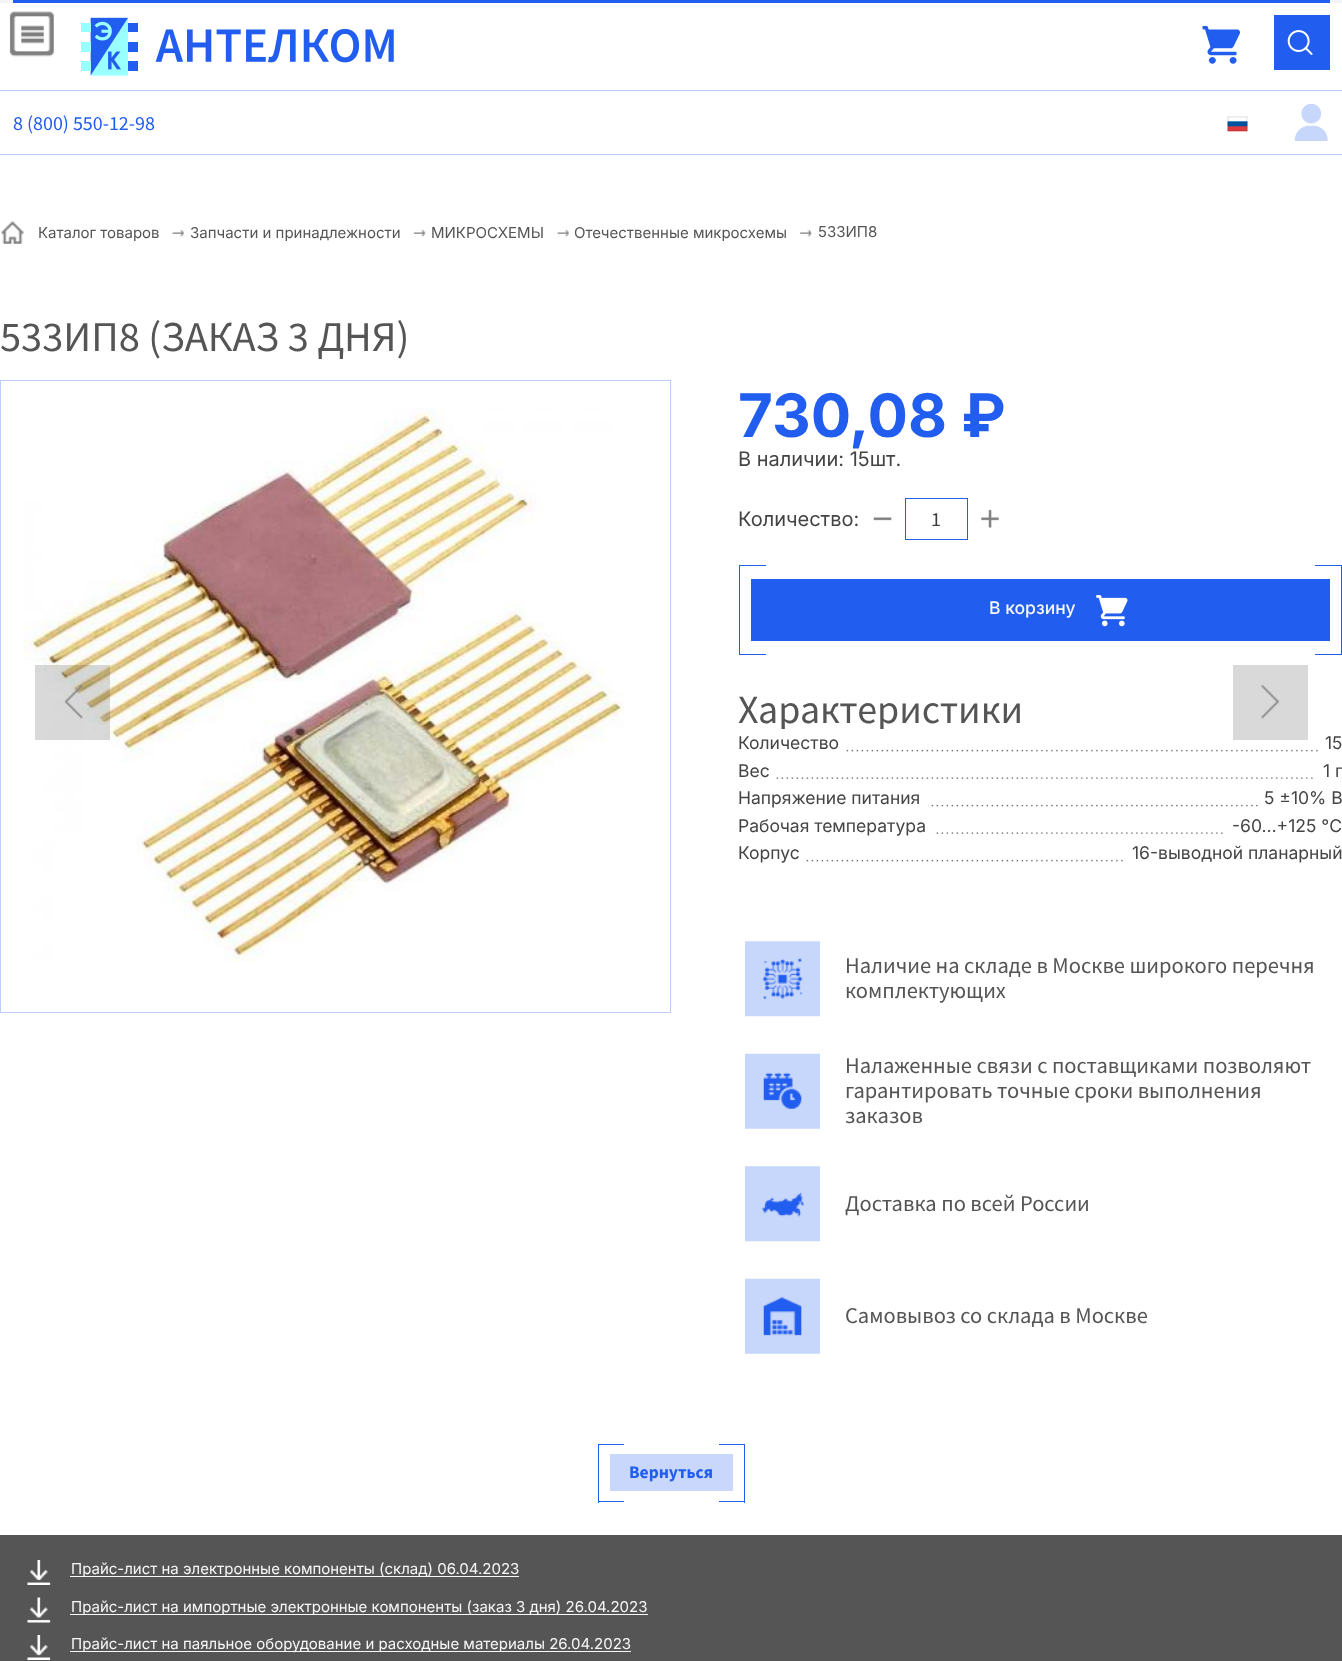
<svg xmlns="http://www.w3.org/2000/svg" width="1342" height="1661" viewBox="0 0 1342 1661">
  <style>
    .t1 { font: 20px Source Sans Pro; fill: #215dee; }
    .t2 { font: 15px Inter; fill: #555; }
    .t3 { font: 42.5px Source Sans Pro; fill: #555; }
    .t4 { font: bold 60px Inter; fill: #215dee; }
    .t5 { font: 20px Inter; fill: #444; }
    .t6 { font: 20px Source Sans Pro; fill: #3c3c3c; }
    .t7 { font: 500 17.5px Inter; fill: #f8f8f8; }
    .t8 { font: 40px Source Sans Pro; fill: #555; }
    .t9 { font: 17.5px Inter; fill: #444; }
    .t10 { font: 22.5px Source Sans Pro; fill: #555; }
    .t11 { font: bold 17.5px Source Sans Pro; fill: #215dee; }
    .t12 { font: 15px Inter; fill: #f8f8f8; }
  </style>
  <rect width="100%" height="100%" fill="#fff"/>
  <rect x="0" y="154" width="1342" height="1" fill="#bccefa"/>
  <rect x="0" y="0" width="1342" height="3" fill="#f4f4f4"/>
  <rect x="13" y="0" width="1317" height="3" fill="#215dee"/>
  <image x="9" y="11" width="45" height="46" href="images/1.png"/>
  <image x="81" y="17" width="313" height="59" href="images/2.png"/>
  <image x="1202" y="26" width="38" height="38" href="images/3.png"/>
  <rect x="1274" y="15" width="56" height="55" fill="#215dee"/>
  <image x="1287" y="30" width="26" height="25" href="images/4.png"/>
  <rect x="0" y="90" width="1342" height="1" fill="#bccefa"/>
  <text x="13" y="130" class="t1">8 (800) 550-12-98</text>
  <image x="1227" y="116" width="21" height="16" href="images/5.png"/>
  <image x="1294" y="104" width="34" height="37" href="images/6.png"/>
  <image x="1" y="221" width="23" height="23" href="images/7.png"/>
  <text x="38" y="238" class="t2">Каталог товаров</text>
  <image x="172" y="230" width="12" height="7" href="images/8.png"/>
  <text x="190" y="238" class="t2">Запчасти и принадлежности</text>
  <image x="413" y="229" width="13" height="8" href="images/9.png"/>
  <text x="431" y="238" class="t2">МИКРОСХЕМЫ</text>
  <image x="557" y="230" width="12" height="7" href="images/10.png"/>
  <text x="574" y="238" class="t2">Отечественные микросхемы</text>
  <image x="799" y="230" width="13" height="7" href="images/11.png"/>
  <text x="818" y="237" class="t2">533ИП8</text>
  <text x="0" y="351" class="t3">533ИП8 (ЗАКАЗ 3 ДНЯ)</text>
  <rect x="0.5" y="380.5" width="670" height="632" fill="none" stroke="#bccefa"/>
  <image x="23" y="408" width="601" height="554" href="images/12.png"/>
  <text x="738" y="437" class="t4">730,08 ₽</text>
  <text x="738" y="466" class="t5">В наличии: 15шт.</text>
  <text x="738" y="526" class="t5">Количество:</text>
  <image x="873" y="517" width="19" height="4" href="images/13.png"/>
  <rect x="905.5" y="498.5" width="62" height="41" fill="none" stroke="#215dee"/>
  <text x="931" y="526" class="t6">1</text>
  <image x="981" y="509" width="18" height="19" href="images/14.png"/>
  <rect x="751" y="579" width="579" height="62" fill="#215dee"/>
  <rect x="739" y="565" width="27" height="1" fill="#215dee"/>
  <rect x="739" y="654" width="27" height="1" fill="#215dee"/>
  <rect x="739" y="565" width="1" height="90" fill="#215dee"/>
  <text x="989" y="614" class="t7">В корзину</text>
  <image x="1096" y="595" width="32" height="32" href="images/15.png"/>
  <rect x="1315" y="565" width="27" height="1" fill="#215dee"/>
  <rect x="1341" y="565" width="1" height="90" fill="#215dee"/>
  <rect x="1315" y="654" width="27" height="1" fill="#215dee"/>
  <text x="738" y="723" class="t8">Характеристики</text>
  <rect x="781" y="729" width="103" height="3" fill="#fff"/>
  <image x="846" y="749" width="178" height="3" href="images/16.png"/>
  <text x="738" y="749" class="t9">Количество</text>
  <image x="1026" y="749" width="292" height="3" href="images/17.png"/>
  <text x="1325" y="749" class="t9">15</text>
  <image x="776" y="777" width="248" height="2" href="images/18.png"/>
  <text x="738" y="777" class="t9">Вес</text>
  <image x="1026" y="777" width="287" height="2" href="images/19.png"/>
  <text x="1323" y="777" class="t9">1 г</text>
  <image x="928" y="804" width="96" height="3" href="images/20.png"/>
  <text x="738" y="804" class="t9">Напряжение питания</text>
  <image x="1026" y="804" width="232" height="3" href="images/21.png"/>
  <text x="1264" y="804" class="t9">5 ±10% В</text>
  <image x="933" y="832" width="91" height="2" href="images/22.png"/>
  <text x="738" y="832" class="t9">Рабочая температура</text>
  <image x="1026" y="832" width="197" height="2" href="images/23.png"/>
  <text x="1232" y="832" class="t9">-60…+125 °С</text>
  <image x="806" y="859" width="218" height="3" href="images/24.png"/>
  <text x="738" y="859" class="t9">Корпус</text>
  <image x="1026" y="859" width="97" height="3" href="images/25.png"/>
  <text x="1132" y="859" class="t9">16-выводной планарный</text>
  <image x="745" y="941" width="75" height="76" href="images/26.png"/>
  <text x="845" y="973" class="t10">Наличие на складе в Москве широкого перечня</text>
  <text x="845" y="998" class="t10">комплектующих</text>
  <image x="745" y="1053" width="75" height="76" href="images/27.png"/>
  <text x="845" y="1073" class="t10">Налаженные связи с поставщиками позволяют</text>
  <text x="845" y="1098" class="t10">гарантировать точные сроки выполнения</text>
  <text x="845" y="1123" class="t10">заказов</text>
  <image x="745" y="1166" width="75" height="76" href="images/28.png"/>
  <text x="845" y="1211" class="t10">Доставка по всей России</text>
  <image x="745" y="1278" width="75" height="76" href="images/29.png"/>
  <text x="845" y="1323" class="t10">Самовывоз со склада в Москве</text>
  <rect x="35" y="665" width="75" height="75" fill="#00000026"/>
  <image x="64" y="685" width="19" height="34" href="images/30.png"/>
  <rect x="1233" y="665" width="75" height="75" fill="#d9d9d9"/>
  <image x="1261" y="685" width="19" height="34" href="images/31.png"/>
  <rect x="610" y="1454" width="123" height="37" fill="#c8d7fb"/>
  <rect x="598" y="1444" width="26" height="1" fill="#215dee"/>
  <rect x="598" y="1501" width="26" height="1" fill="#215dee"/>
  <rect x="598" y="1444" width="1" height="59" fill="#215dee"/>
  <text x="629" y="1478" class="t11">Вернуться</text>
  <rect x="719" y="1444" width="26" height="1" fill="#215dee"/>
  <rect x="744" y="1444" width="1" height="59" fill="#215dee"/>
  <rect x="719" y="1501" width="26" height="1" fill="#215dee"/>
  <rect x="0" y="1535" width="1342" height="126" fill="#555"/>
  <image x="27" y="1560" width="24" height="25" href="images/32.png"/>
  <rect x="70" y="1576" width="449" height="1" fill="#f8f8f8"/>
  <text x="71" y="1574" class="t12">Прайс-лист на электронные компоненты (склад) 06.04.2023</text>
  <image x="27" y="1597" width="24" height="26" href="images/33.png"/>
  <rect x="70" y="1614" width="578" height="1" fill="#f8f8f8"/>
  <text x="71" y="1612" class="t12">Прайс-лист на импортные электронные компоненты (заказ 3 дня) 26.04.2023</text>
  <image x="27" y="1635" width="24" height="25" href="images/34.png"/>
  <rect x="70" y="1651" width="561" height="1" fill="#f8f8f8"/>
  <text x="71" y="1649" class="t12">Прайс-лист на паяльное оборудование и расходные материалы 26.04.2023</text>
</svg>
